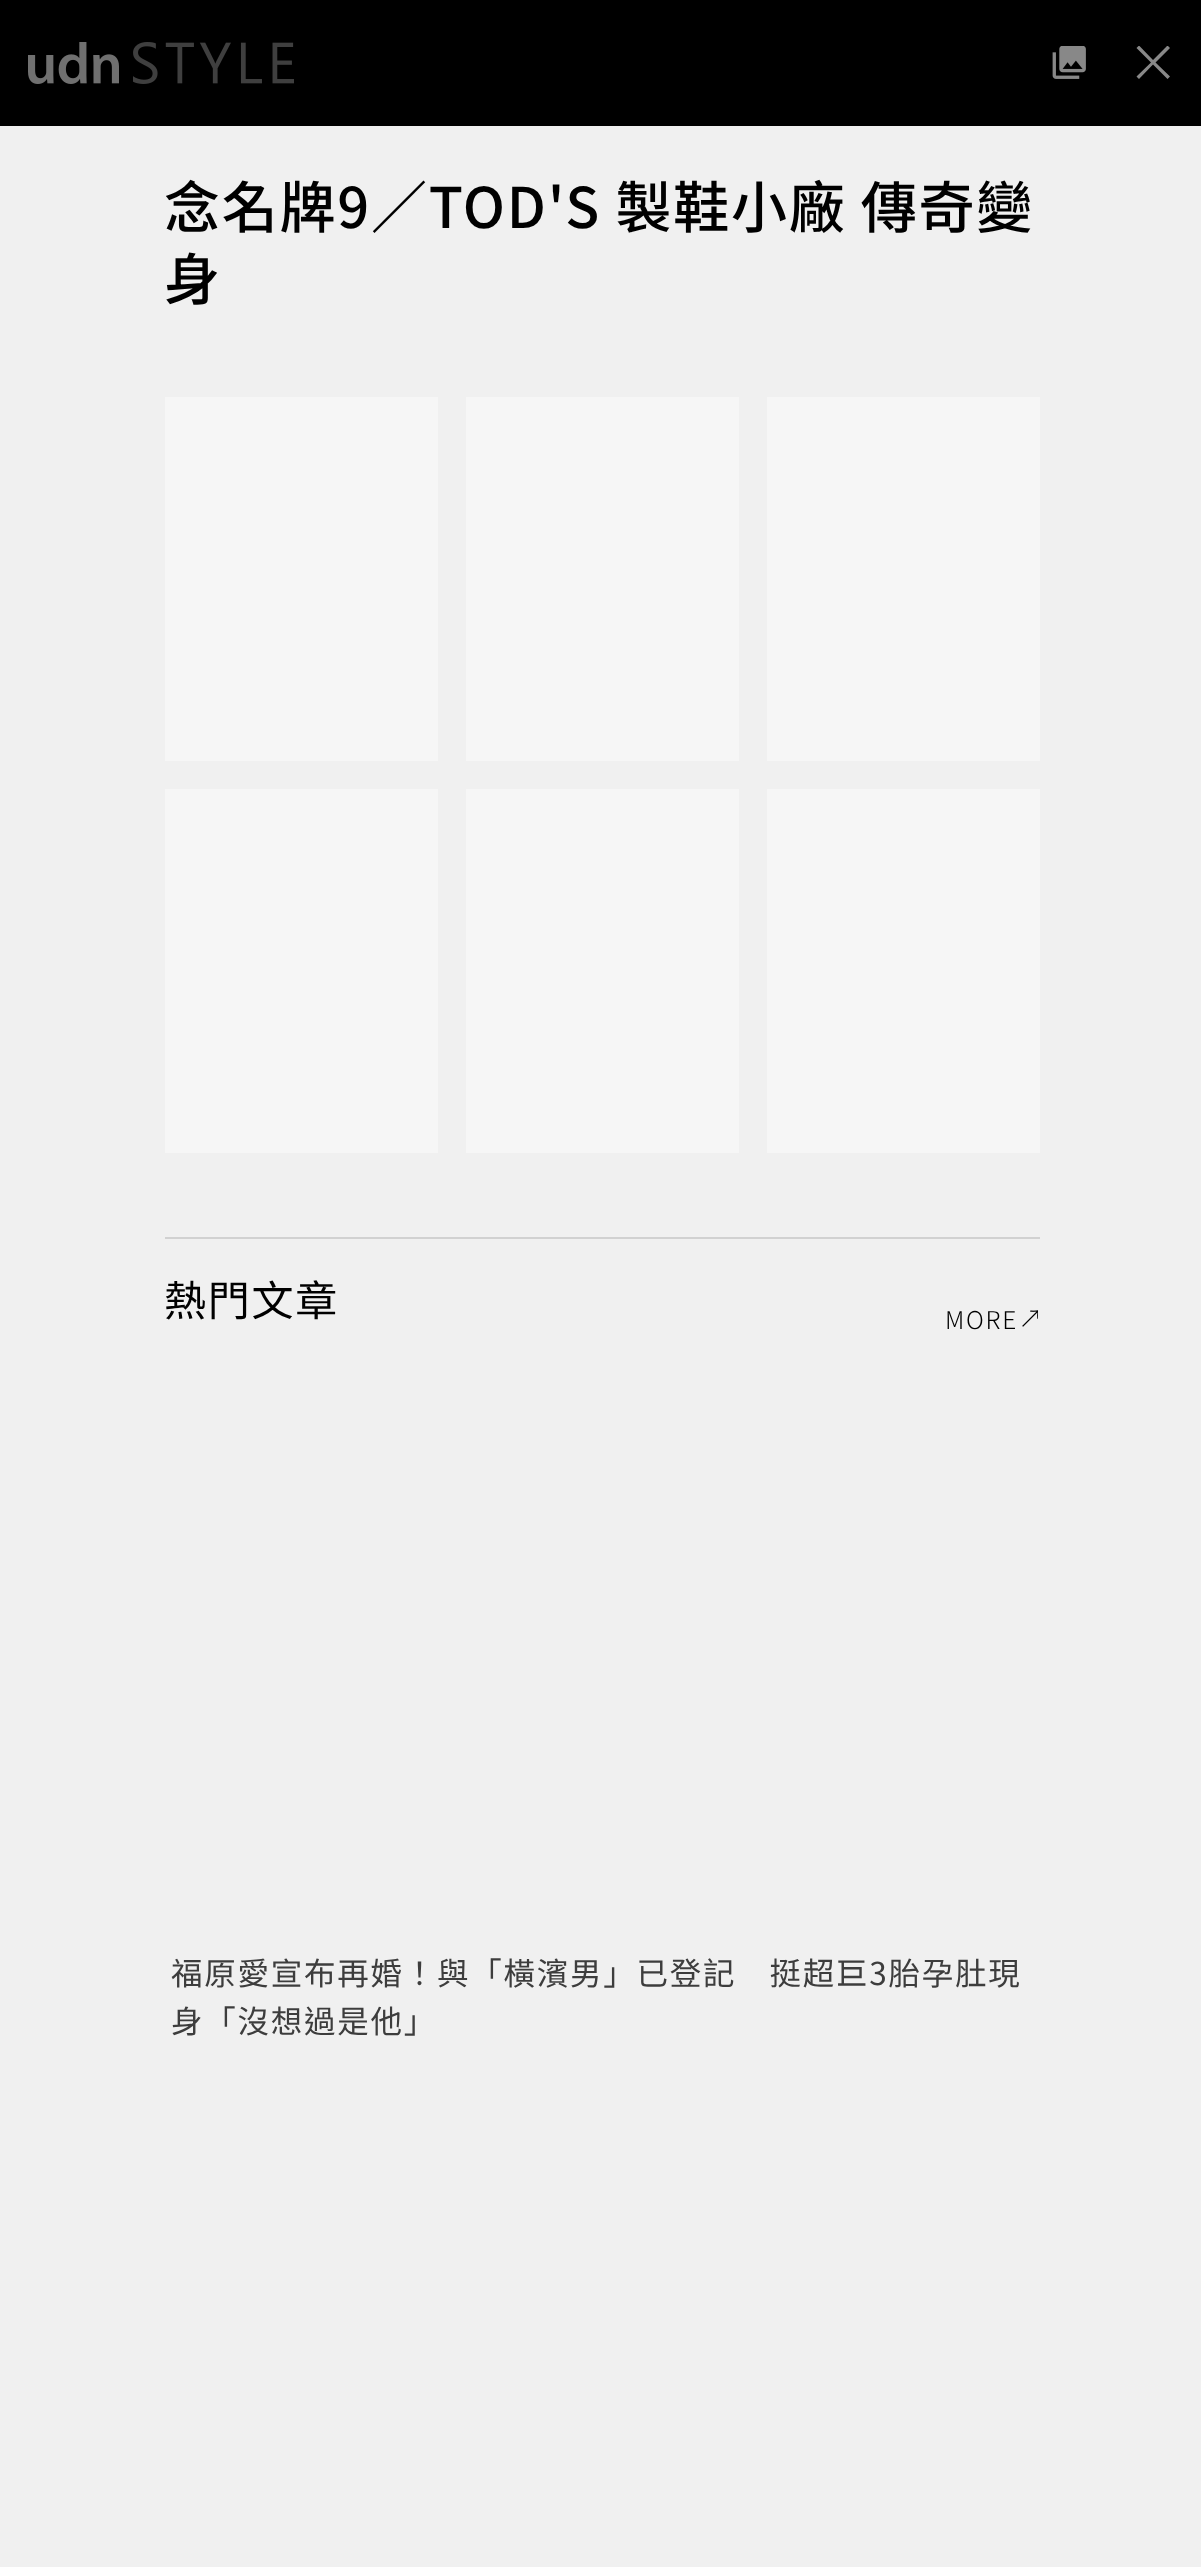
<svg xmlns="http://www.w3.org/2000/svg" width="1201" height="2567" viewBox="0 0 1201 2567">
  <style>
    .t1 { font: 500 56px Noto Sans TC; letter-spacing: 1.75px; fill: #000; }
    .t2 { font: 42px Noto Sans TC; letter-spacing: 1.75px; fill: #000; }
    .t3 { font: 300 24.5px Noto Sans TC; letter-spacing: 1.75px; fill: #000; }
    .t4 { font: 31.5px Noto Sans TC; letter-spacing: 1.75px; fill: #3d3d3d; }
  </style>
  <defs>
    <clipPath id="clip1"><rect x="1136" y="46" width="35" height="35"/></clipPath>
  </defs>
  <rect width="100%" height="100%" fill="#f0f0f0"/>
  <rect x="0" y="0" width="1201" height="126" fill="#000"/>
  <image x="28" y="42" width="91" height="42" href="images/1.png"/>
  <image x="133" y="42" width="161" height="42" href="images/2.png"/>
  <image x="1052" y="46" width="34" height="33" href="images/3.png"/>
  <g clip-path="url(#clip1)">
    <path d="M1170 48L1155.5 62.5L1170 76.5L1167.5 79L1153 64.5L1139 79L1136.5 76.5L1151 62.5L1136.5 48L1139 45.5L1153 60L1167.5 45.5Z" fill="#888"/>
  </g>
  <text x="164" y="228" class="t1">念名牌9／TOD'S 製鞋小廠 傳奇變</text>
  <text x="164" y="300" class="t1">身</text>
  <rect x="165" y="397" width="273" height="364" fill="#f6f6f6"/>
  <rect x="466" y="397" width="273" height="364" fill="#f6f6f6"/>
  <rect x="767" y="397" width="273" height="364" fill="#f6f6f6"/>
  <rect x="165" y="789" width="273" height="364" fill="#f6f6f6"/>
  <rect x="466" y="789" width="273" height="364" fill="#f6f6f6"/>
  <rect x="767" y="789" width="273" height="364" fill="#f6f6f6"/>
  <rect x="165" y="1237" width="875" height="2" fill="#d1d1d1"/>
  <text x="164" y="1316" class="t2">熱門文章</text>
  <text x="945" y="1329" class="t3">MORE</text>
  <image x="1022" y="1310" width="16" height="17" href="images/4.png"/>
  <text x="171" y="1985" class="t4">福原愛宣布再婚！與「橫濱男」已登記　挺超巨3胎孕肚現</text>
  <text x="171" y="2033" class="t4">身「沒想過是他」</text>
</svg>
